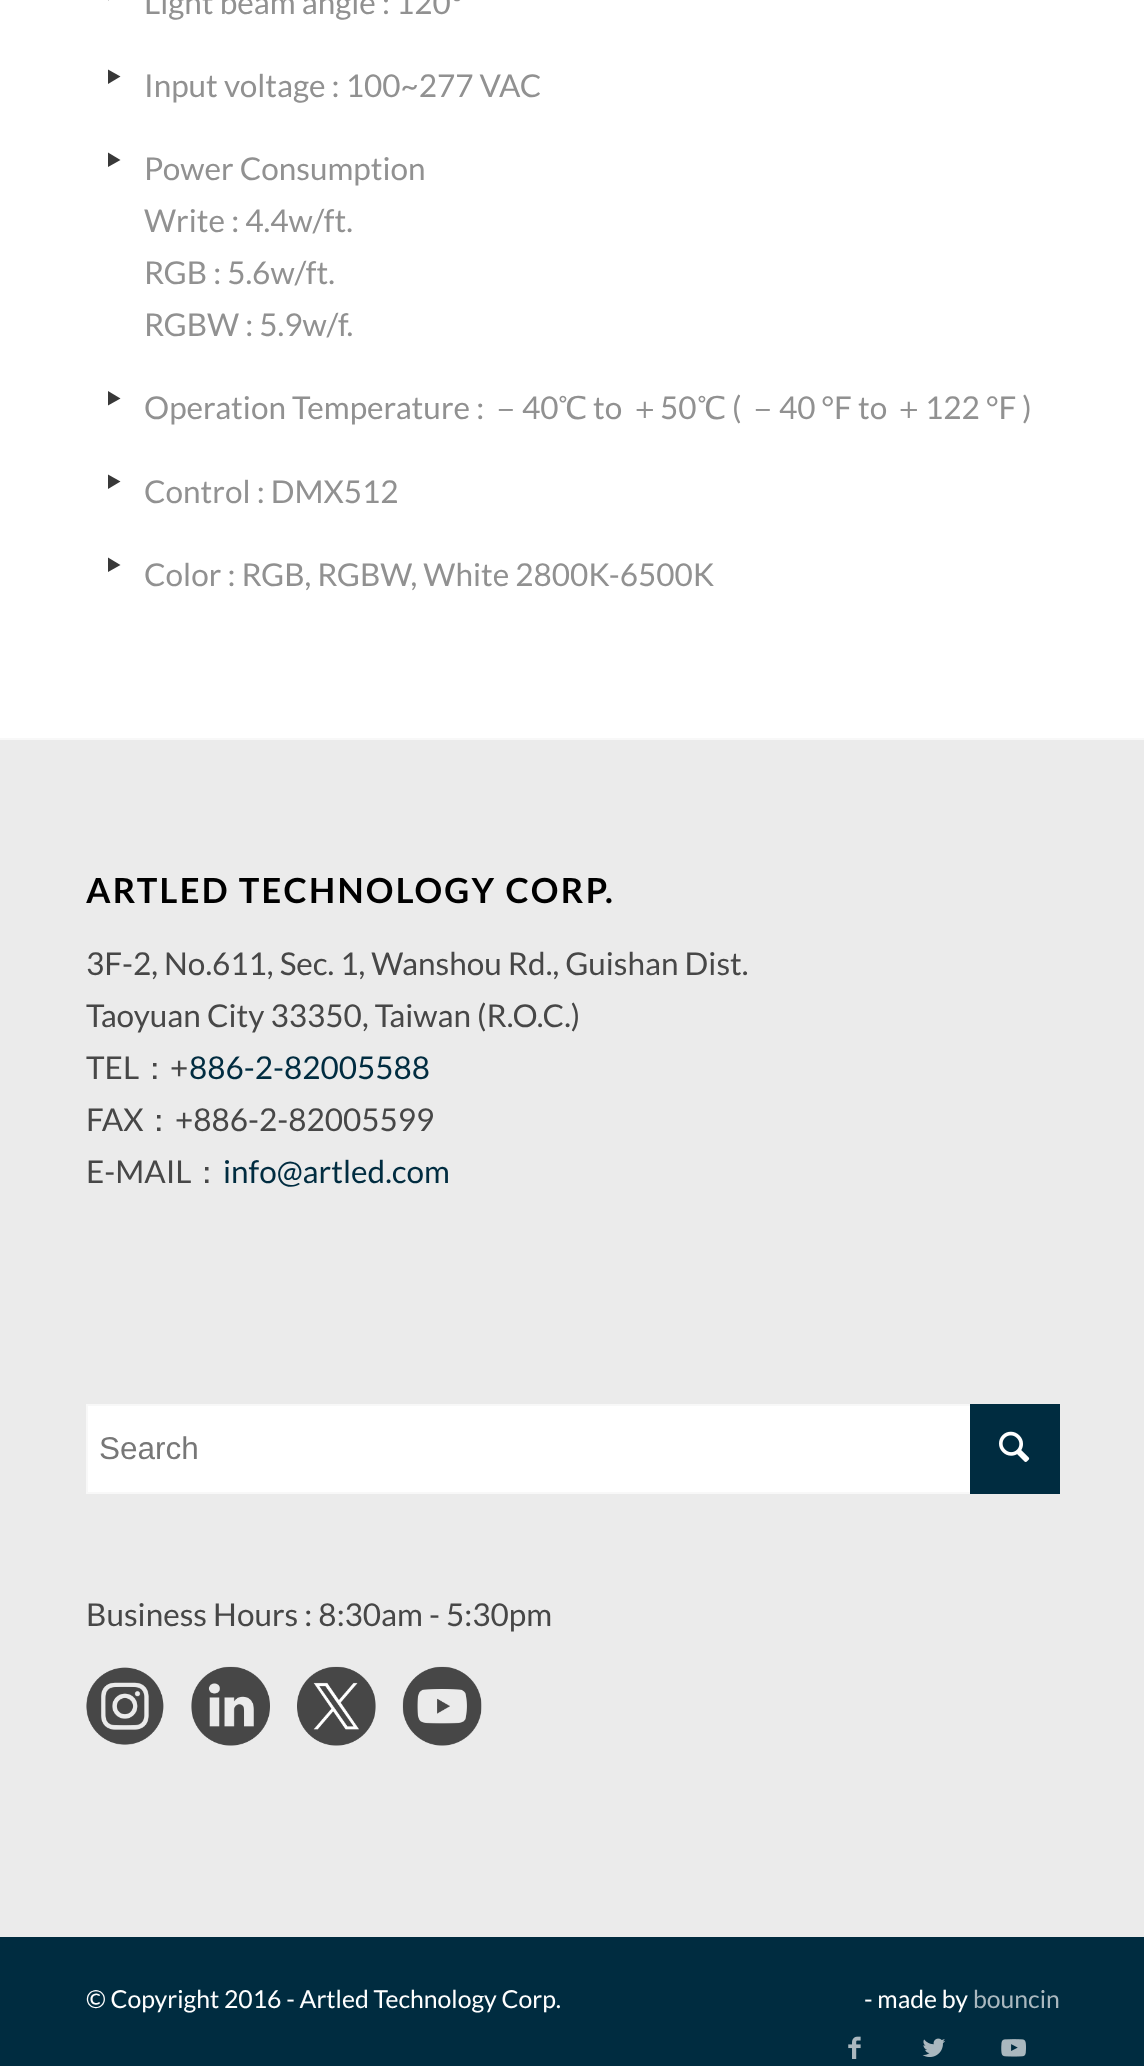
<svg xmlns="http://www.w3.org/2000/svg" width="1144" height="2066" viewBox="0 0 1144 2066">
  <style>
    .t1 { font: 31.5px Lato; fill: #919191; }
    .t2 { font: 500 31.5px WenQuanYi Zen Hei; fill: #919191; }
    .t3 { font: bold 34.6px Lato; letter-spacing: 2.25px; fill: #000; }
    .t4 { font: 31.5px Lato; fill: #474747; }
    .t5 { font: 500 31.5px WenQuanYi Zen Hei; fill: #474747; }
    .t6 { font: 31.5px Lato; fill: #002c40; }
    .t7 { font: 31.5px Liberation Sans; fill: #777; }
    .t8 { font: 24.75px Lato; fill: #fff; }
    .t9 { font: 24.75px Lato; fill: #aab8bf; }
  </style>
  <rect width="100%" height="100%" fill="#fff"/>
  <path d="M108-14L120.5-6.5L108 .5Z" fill="#383838"/>
  <text x="144" y="14" class="t1">Light beam angle : 120°</text>
  <path d="M108 69.5L120.5 76.5L108 84Z" fill="#383838"/>
  <text x="144" y="97" class="t1">Input voltage : 100~277 VAC</text>
  <path d="M108 152.5L120.5 160L108 167Z" fill="#383838"/>
  <text x="144" y="180" class="t1">Power Consumption</text>
  <text x="144" y="232" class="t1">Write : 4.4w/ft.</text>
  <text x="144" y="284" class="t1">RGB : 5.6w/ft.</text>
  <text x="144" y="336" class="t1">RGBW : 5.9w/f.</text>
  <path d="M108 391L120.5 398.5L108 405.5Z" fill="#383838"/>
  <text x="144" y="419" class="t1">Operation Temperature :</text>
  <text x="490" y="419" class="t2">－</text>
  <text x="522" y="419" class="t1">40</text>
  <text x="558" y="419" class="t2">℃</text>
  <text x="593" y="419" class="t1">to</text>
  <text x="629" y="419" class="t2">＋</text>
  <text x="660" y="419" class="t1">50</text>
  <text x="697" y="419" class="t2">℃</text>
  <text x="732" y="419" class="t1">(</text>
  <text x="747" y="419" class="t2">－</text>
  <text x="779" y="419" class="t1">40 °F to</text>
  <text x="893" y="419" class="t2">＋</text>
  <text x="925" y="419" class="t1">122 °F )</text>
  <path d="M108 474.5L120.5 481.5L108 489Z" fill="#383838"/>
  <text x="144" y="503" class="t1">Control : DMX512</text>
  <path d="M108 557.5L120.5 565L108 572Z" fill="#383838"/>
  <text x="144" y="586" class="t1">Color : RGB, RGBW, White 2800K-6500K</text>
  <rect x="0" y="740" width="1144" height="1197" fill="#ebebeb"/>
  <rect x="0" y="738" width="1144" height="2" fill="#f8f8f8"/>
  <text x="86" y="903" class="t3">ARTLED TECHNOLOGY CORP.</text>
  <text x="86" y="975" class="t4">3F-2, No.611, Sec. 1, Wanshou Rd., Guishan Dist.</text>
  <text x="86" y="1027" class="t4">Taoyuan City 33350, Taiwan (R.O.C.)</text>
  <text x="86" y="1079" class="t4">TEL</text>
  <text x="139" y="1079" class="t5">：</text>
  <text x="170" y="1079" class="t4">+</text>
  <text x="189" y="1079" class="t6">886-2-82005588</text>
  <text x="86" y="1131" class="t4">FAX</text>
  <text x="143" y="1131" class="t5">：</text>
  <text x="175" y="1131" class="t4">+886-2-82005599</text>
  <text x="86" y="1183" class="t4">E-MAIL</text>
  <text x="191" y="1183" class="t5">：</text>
  <text x="223" y="1183" class="t6">info@artled.com</text>
  <rect x="88" y="1406" width="882" height="86" fill="#fff"/>
  <rect x="87" y="1405" width="972" height="88" fill="none" stroke="#f8f8f8" stroke-width="2"/>
  <text x="99" y="1459" class="t7">Search</text>
  <rect x="970" y="1404" width="90" height="90" fill="#002c40"/>
  <image x="999" y="1431" width="31" height="31" href="images/1.png"/>
  <text x="86" y="1626" class="t4">Business Hours : 8:30am - 5:30pm</text>
  <image x="86" y="1667" width="78" height="78" href="images/2.png"/>
  <image x="191" y="1666" width="79" height="80" href="images/3.png"/>
  <image x="297" y="1666" width="79" height="80" href="images/4.png"/>
  <image x="402" y="1666" width="80" height="80" href="images/5.png"/>
  <rect x="0" y="1937" width="1144" height="129" fill="#002c40"/>
  <text x="86" y="2008" class="t8">© Copyright 2016 - Artled Technology Corp.</text>
  <text x="864" y="2008" class="t8">- made by</text>
  <text x="973" y="2008" class="t9">bouncin</text>
  <image x="848" y="2036" width="13" height="23" href="images/6.png"/>
  <image x="922" y="2038" width="24" height="19" href="images/7.png"/>
  <image x="1001" y="2039" width="25" height="18" href="images/8.png"/>
</svg>
